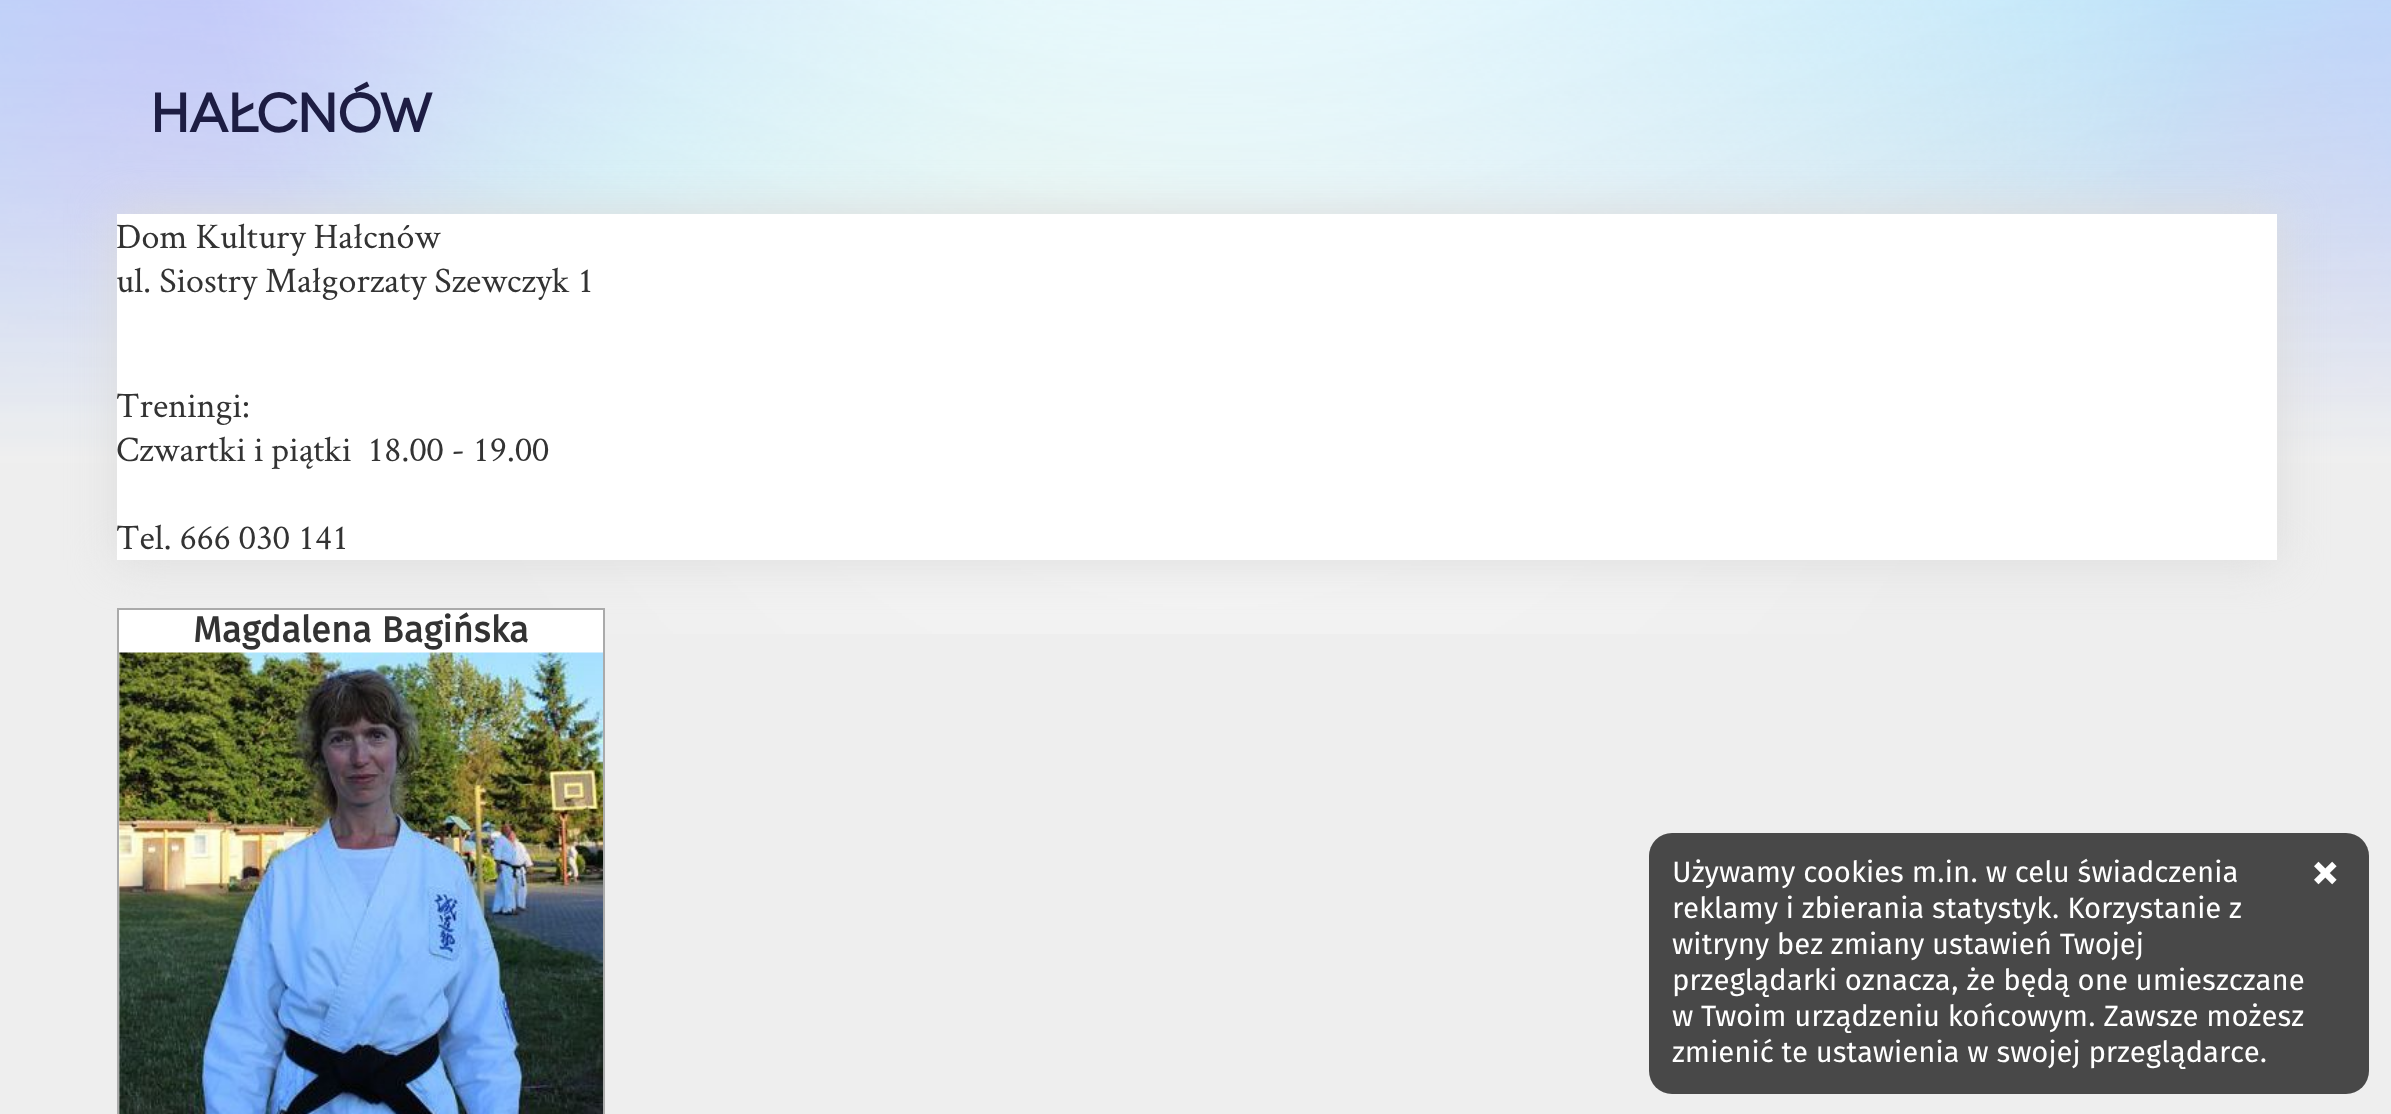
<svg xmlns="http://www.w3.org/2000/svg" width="2391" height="1114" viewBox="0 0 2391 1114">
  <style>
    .t1 { font: bold 54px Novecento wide; fill: #1d1d43; }
    .t2 { font: 36px Crimson Text; fill: #333; }
    .t3 { font: bold 36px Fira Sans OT; fill: #333; }
    .t4 { font: 29.25px Fira Sans OT; fill: #fff; }
    .t5 { font: bold 58px Fira Sans OT; fill: #fff; }
  </style>
  <rect width="100%" height="100%" fill="#eee"/>
  <image x="0" y="0" width="2391" height="634" href="images/1.png"/>
  <text x="150" y="132" class="t1">Hałcnów</text>
  <rect x="117" y="214" width="2160" height="346" fill="#dbdbdb" filter="blur(22.5px)"/>
  <rect x="117" y="214" width="2160" height="346" fill="#fff"/>
  <text x="116" y="248" class="t2">Dom Kultury Hałcnów</text>
  <text x="116" y="292" class="t2">ul. Siostry Małgorzaty Szewczyk 1</text>
  <text x="116" y="417" class="t2">Treningi:</text>
  <text x="116" y="461" class="t2" xml:space="preserve">Czwartki i piątki  18.00 - 19.00</text>
  <text x="116" y="549" class="t2">Tel. 666 030 141</text>
  <rect x="118" y="609" width="486" height="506" fill="#fff" stroke="#aaa" stroke-width="2"/>
  <text x="193" y="642" class="t3">Magdalena Bagińska</text>
  <image x="119" y="652" width="484" height="462" href="images/2.png"/>
  <rect x="1649" y="833" width="720" height="261" rx="23" fill="#484848"/>
  <text x="1672" y="882" class="t4">Używamy cookies m.in. w celu świadczenia</text>
  <text x="2310" y="891" class="t5">×</text>
  <text x="1672" y="918" class="t4">reklamy i zbierania statystyk. Korzystanie z</text>
  <text x="1672" y="954" class="t4">witryny bez zmiany ustawień Twojej</text>
  <text x="1672" y="990" class="t4">przeglądarki oznacza, że będą one umieszczane</text>
  <text x="1672" y="1026" class="t4">w Twoim urządzeniu końcowym. Zawsze możesz</text>
  <text x="1672" y="1062" class="t4">zmienić te ustawienia w swojej przeglądarce.</text>
</svg>
